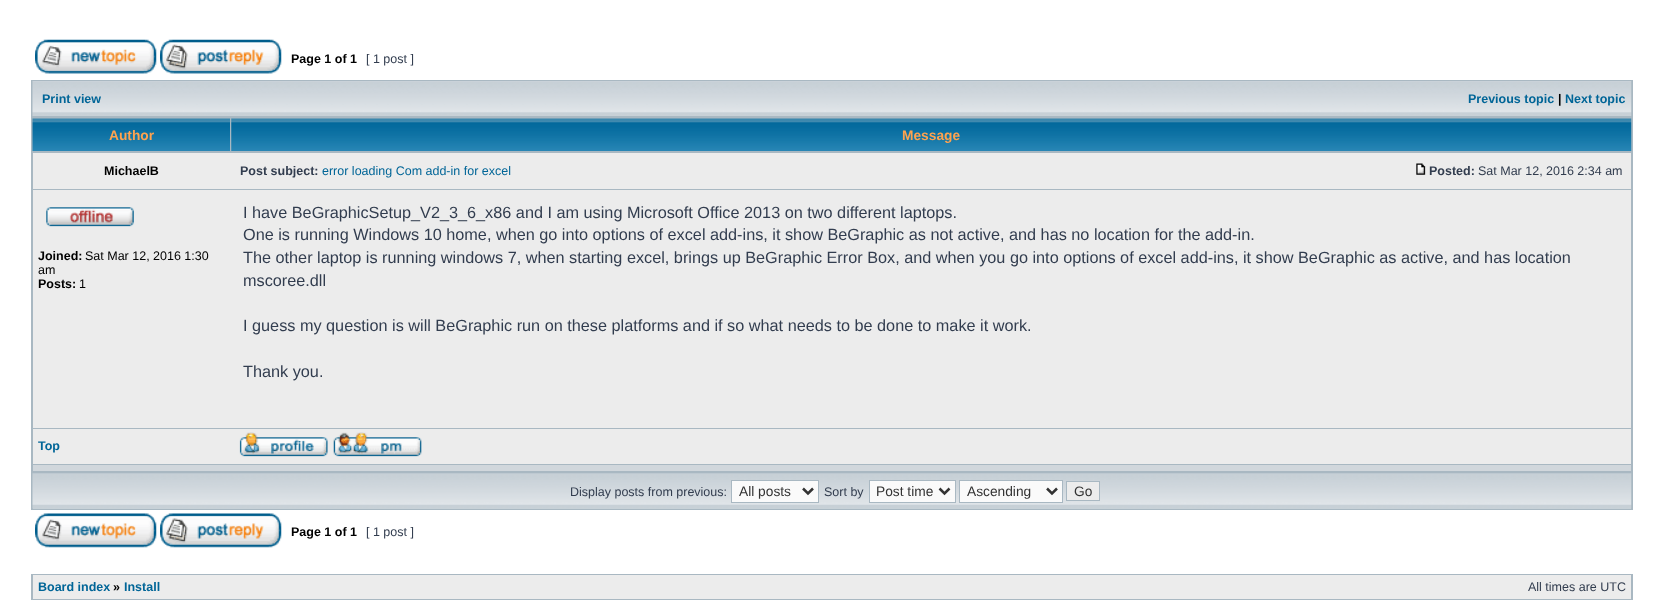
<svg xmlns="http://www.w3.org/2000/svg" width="1663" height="610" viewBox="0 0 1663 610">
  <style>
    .t1 { font: bold 12.5px Liberation Sans; fill: #000; }
    .t2 { font: 12.5px Liberation Sans; fill: #323d4f; }
    .t3 { font: bold 12.5px Liberation Sans; fill: #006597; }
    .t4 { font: bold 13.75px Liberation Sans; fill: #ffa34f; }
    .t5 { font: bold 12.5px Liberation Sans; fill: #323d4f; }
    .t6 { font: 12.5px Liberation Sans; fill: #006597; }
    .t7 { font: 12.5px Liberation Sans; fill: #000; }
    .t8 { font: 16.25px Liberation Sans; fill: #323d4f; }
    .t9 { font: 13.75px Liberation Sans; fill: #333; }
  </style>
  <rect width="100%" height="100%" fill="#fff"/>
  <image x="35" y="39" width="122" height="35" href="images/1.png"/>
  <image x="160" y="39" width="122" height="35" href="images/2.png"/>
  <text x="291" y="63" class="t1">Page 1 of 1</text>
  <text x="366" y="63" class="t2">[ 1 post ]</text>
  <rect x="31" y="80" width="1602" height="430" fill="#a9b8c2"/>
  <image x="32" y="81" width="1600" height="35" href="images/3.png"/>
  <text x="42" y="103" class="t3">Print view</text>
  <text x="1468" y="103" class="t3">Previous topic</text>
  <text x="1558" y="103" class="t1">|</text>
  <text x="1565" y="103" class="t3">Next topic</text>
  <image x="32" y="118" width="198" height="33" href="images/4.png"/>
  <text x="109" y="140" class="t4">Author</text>
  <image x="231" y="118" width="1401" height="33" href="images/5.png"/>
  <text x="902" y="140" class="t4">Message</text>
  <rect x="33" y="153" width="1598" height="36" fill="#ececec"/>
  <text x="104" y="175" class="t1">MichaelB</text>
  <text x="240" y="175" class="t5">Post subject:</text>
  <text x="322" y="175" class="t6">error loading Com add-in for excel</text>
  <image x="1416" y="163" width="10" height="12" href="images/6.png"/>
  <text x="1429" y="175" class="t5">Posted:</text>
  <text x="1478" y="175" class="t2">Sat Mar 12, 2016 2:34 am</text>
  <rect x="33" y="190" width="1598" height="238" fill="#ececec"/>
  <image x="46" y="207" width="88" height="20" href="images/7.png"/>
  <text x="38" y="260" class="t1">Joined:</text>
  <text x="85" y="260" class="t7">Sat Mar 12, 2016 1:30</text>
  <text x="38" y="274" class="t7">am</text>
  <text x="38" y="288" class="t1">Posts:</text>
  <text x="79" y="288" class="t7">1</text>
  <text x="243" y="218" class="t8">I have BeGraphicSetup_V2_3_6_x86 and I am using Microsoft Office 2013 on two different laptops.</text>
  <text x="243" y="240" class="t8">One is running Windows 10 home, when go into options of excel add-ins, it show BeGraphic as not active, and has no location for the add-in.</text>
  <text x="243" y="263" class="t8">The other laptop is running windows 7, when starting excel, brings up BeGraphic Error Box, and when you go into options of excel add-ins, it show BeGraphic as active, and has location</text>
  <text x="243" y="286" class="t8">mscoree.dll</text>
  <text x="243" y="331" class="t8">I guess my question is will BeGraphic run on these platforms and if so what needs to be done to make it work.</text>
  <text x="243" y="377" class="t8">Thank you.</text>
  <rect x="33" y="429" width="1598" height="35" fill="#ececec"/>
  <text x="38" y="450" class="t3">Top</text>
  <image x="239" y="432" width="89" height="25" href="images/8.png"/>
  <image x="333" y="432" width="89" height="25" href="images/9.png"/>
  <rect x="33" y="465" width="1598" height="6" fill="#d1d7dc"/>
  <rect x="33" y="508" width="1598" height="1" fill="#c7d0d7"/>
  <image x="32" y="473" width="1600" height="36" href="images/10.png"/>
  <text x="570" y="496" class="t2">Display posts from previous:</text>
  <rect x="731.5" y="480.5" width="87" height="22" fill="#fafafa" stroke="#a9b8c2"/>
  <path d="M803 488.5L808 493.5L813 488.5" fill="none" stroke="#333" stroke-width="2.5"/>
  <text x="739" y="496" class="t9">All posts</text>
  <text x="824" y="496" class="t2">Sort by</text>
  <rect x="869.5" y="480.5" width="86" height="22" fill="#fafafa" stroke="#a9b8c2"/>
  <path d="M939.5 488.5L944.5 493.5L949.5 488.5" fill="none" stroke="#333" stroke-width="2.5"/>
  <text x="876" y="496" class="t9">Post time</text>
  <rect x="959.5" y="480.5" width="103" height="22" fill="#fafafa" stroke="#a9b8c2"/>
  <path d="M1047 488.5L1052 493.5L1057 488.5" fill="none" stroke="#333" stroke-width="2.5"/>
  <text x="967" y="496" class="t9">Ascending</text>
  <rect x="1066.5" y="481.5" width="33" height="19" fill="#ececec" stroke="#a9b8c2"/>
  <text x="1074" y="496" class="t9">Go</text>
  <image x="35" y="513" width="122" height="35" href="images/11.png"/>
  <image x="160" y="513" width="122" height="35" href="images/12.png"/>
  <text x="291" y="536" class="t1">Page 1 of 1</text>
  <text x="366" y="536" class="t2">[ 1 post ]</text>
  <rect x="31" y="574" width="1602" height="26" fill="#a9b8c2"/>
  <rect x="33" y="575" width="1598" height="24" fill="#ececec"/>
  <text x="38" y="591" class="t3">Board index</text>
  <text x="113" y="591" class="t1">»</text>
  <text x="124" y="591" class="t3">Install</text>
  <text x="1528" y="591" class="t2">All times are UTC</text>
</svg>
